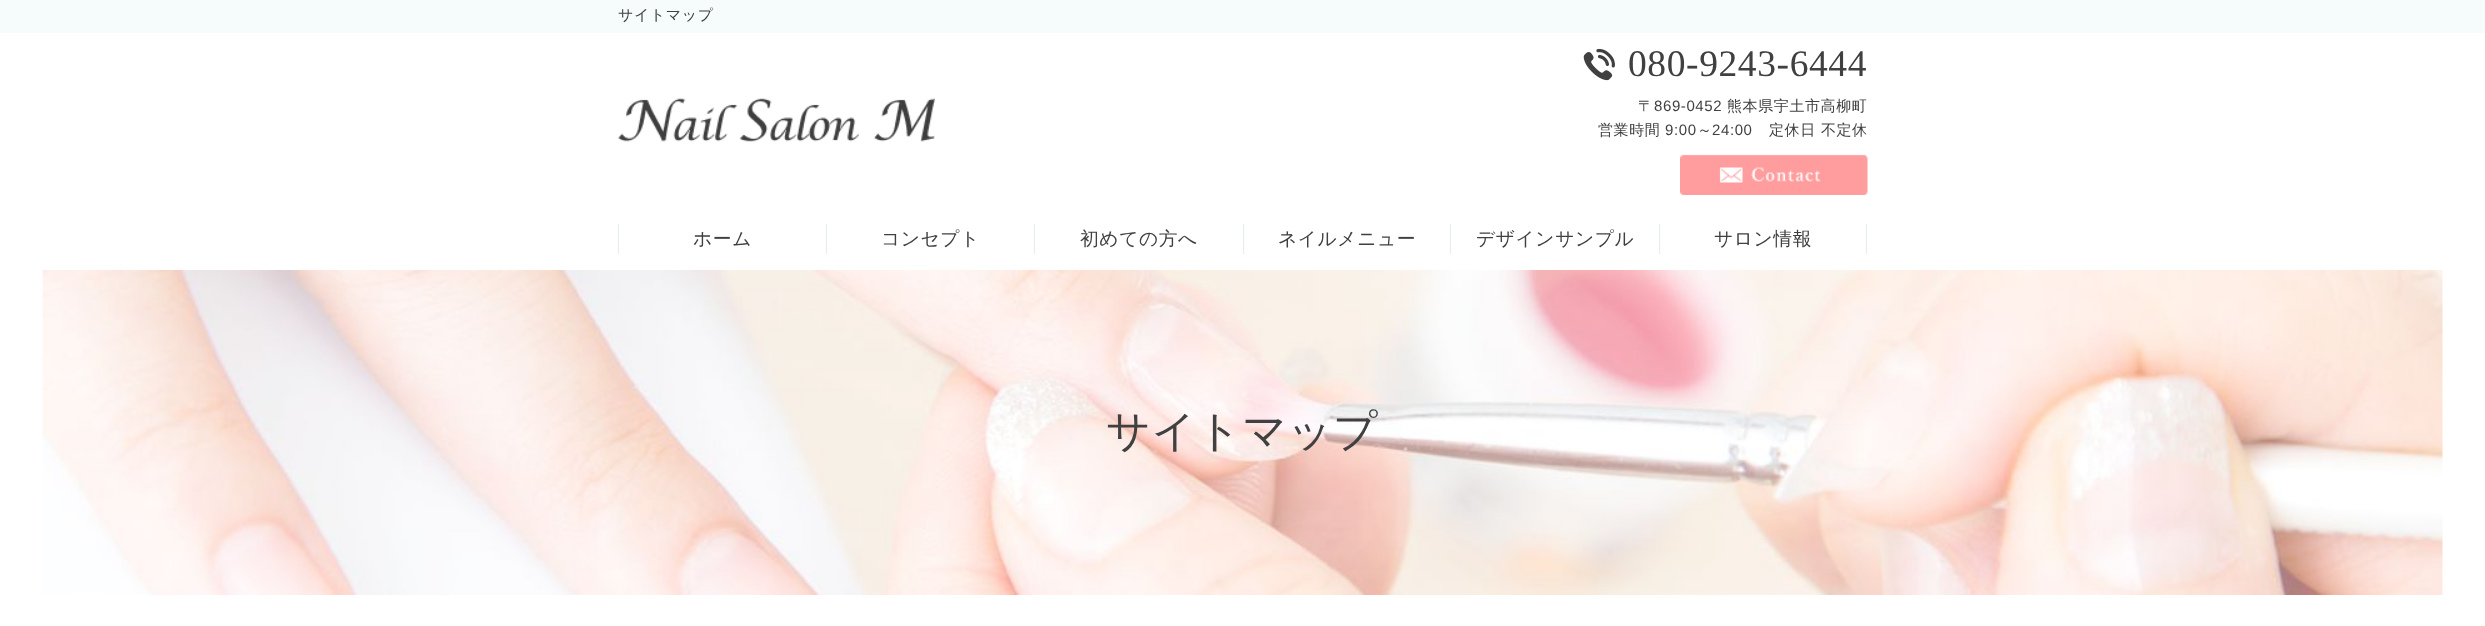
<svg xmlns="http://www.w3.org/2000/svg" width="2485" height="626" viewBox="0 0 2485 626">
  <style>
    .t1 { font: 500 15px WenQuanYi Zen Hei; letter-spacing: 0.6px; fill: #404040; }
    .t2 { font: 37.5px Liberation Serif; letter-spacing: 0.6px; fill: #404040; }
    .t3 { font: 15px Liberation Sans; letter-spacing: 0.6px; fill: #404040; }
    .t4 { font: 500 18.75px WenQuanYi Zen Hei; letter-spacing: 0.6px; fill: #404040; }
    .t5 { font: 500 43.75px WenQuanYi Zen Hei; letter-spacing: 0.6px; fill: #404040; }
  </style>
  <rect width="100%" height="100%" fill="#fff"/>
  <rect x="0" y="0" width="2485" height="33" fill="#f6fbfb"/>
  <text x="618" y="20" class="t1">サイトマップ</text>
  <image x="617" y="98" width="318" height="44" href="images/1.png"/>
  <image x="1583" y="48" width="32" height="33" href="images/2.png"/>
  <text x="1628" y="76" class="t2">080-9243-6444</text>
  <text x="1638" y="111" class="t1">〒</text>
  <text x="1654" y="111" class="t3">869-0452</text>
  <text x="1727" y="111" class="t1">熊本県宇土市高柳町</text>
  <text x="1598" y="135" class="t1">営業時間</text>
  <text x="1665" y="135" class="t3">9:00</text>
  <text x="1697" y="135" class="t1">～</text>
  <text x="1712" y="135" class="t3">24:00</text>
  <text x="1769" y="135" class="t1">定休日 不定休</text>
  <image x="1680" y="154" width="188" height="41" href="images/3.png"/>
  <rect x="618" y="224" width="1" height="30" fill="#e6ecec"/>
  <text x="693" y="245" class="t4">ホーム</text>
  <rect x="826" y="224" width="1" height="30" fill="#e6ecec"/>
  <text x="881" y="245" class="t4">コンセプト</text>
  <rect x="1034" y="224" width="1" height="30" fill="#e6ecec"/>
  <text x="1080" y="245" class="t4">初めての方へ</text>
  <rect x="1243" y="224" width="1" height="30" fill="#e6ecec"/>
  <text x="1278" y="245" class="t4">ネイルメニュー</text>
  <rect x="1450" y="224" width="1" height="30" fill="#e6ecec"/>
  <text x="1476" y="245" class="t4">デザインサンプル</text>
  <rect x="1866" y="224" width="1" height="30" fill="#e6ecec"/>
  <rect x="1659" y="224" width="1" height="30" fill="#e6ecec"/>
  <text x="1714" y="245" class="t4">サロン情報</text>
  <image x="42" y="270" width="2401" height="325" href="images/4.png"/>
  <text x="1106" y="446" class="t5">サイトマップ</text>
</svg>
